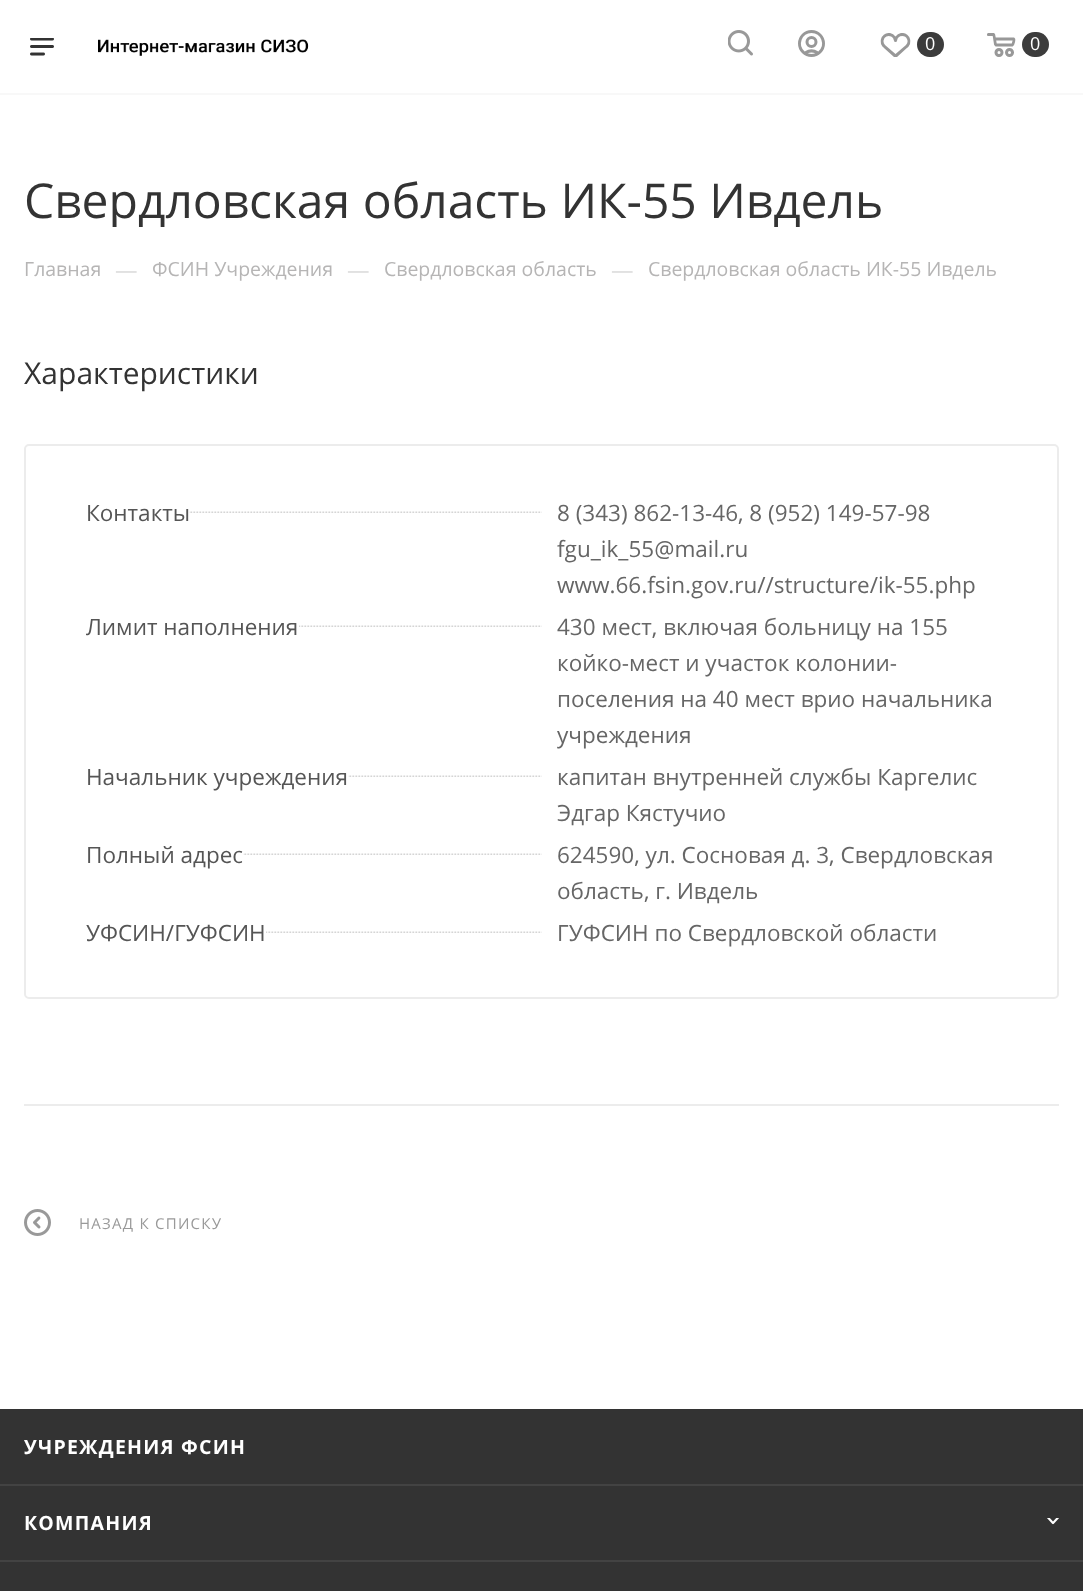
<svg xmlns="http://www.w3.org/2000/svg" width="1083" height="1591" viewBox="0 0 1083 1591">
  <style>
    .t1 { font: 18px Open Sans; fill: #fff; }
    .t2 { font: 48px Open Sans; fill: #333; }
    .t3 { font: 19.5px Open Sans; fill: #b6b5b5; }
    .t4 { font: 22.5px Open Sans; fill: #ddd; }
    .t5 { font: 30px Open Sans; fill: #333; }
    .t6 { font: 22.5px Open Sans; fill: #555; }
    .t7 { font: 22.5px Open Sans; fill: #666; }
    .t8 { font: 15px Open Sans; letter-spacing: 1.25px; fill: #999; }
    .t9 { font: bold 19.5px Open Sans; letter-spacing: 1.25px; fill: #fff; }
  </style>
  <defs>
    <clipPath id="clip1"><rect x="24" y="173" width="1035" height="54"/></clipPath>
  </defs>
  <rect width="100%" height="100%" fill="#fff"/>
  <rect x="0" y="93" width="1083" height="2" fill="#f8f8f8"/>
  <image x="30" y="38" width="24" height="18" href="images/1.png"/>
  <image x="98" y="39" width="211" height="17" href="images/2.png"/>
  <image x="728" y="30" width="25" height="26" href="images/3.png"/>
  <image x="798" y="30" width="27" height="27" href="images/4.png"/>
  <image x="880" y="33" width="31" height="24" href="images/5.png"/>
  <rect x="917" y="32" width="27" height="25" rx="12.5" fill="#3c3c3c"/>
  <text x="925" y="50" class="t1">0</text>
  <image x="987" y="33" width="29" height="24" href="images/6.png"/>
  <rect x="1022" y="32" width="27" height="25" rx="12.5" fill="#3c3c3c"/>
  <text x="1030" y="50" class="t1">0</text>
  <g clip-path="url(#clip1)">
    <text x="24" y="218" class="t2">Свердловская область ИК-55 Ивдель</text>
  </g>
  <text x="24" y="276" class="t3">Главная</text>
  <text x="115" y="278" class="t4">—</text>
  <text x="152" y="276" class="t3">ФСИН Учреждения</text>
  <text x="347" y="278" class="t4">—</text>
  <text x="384" y="276" class="t3">Свердловская область</text>
  <text x="611" y="278" class="t4">—</text>
  <text x="648" y="276" class="t3">Свердловская область ИК-55 Ивдель</text>
  <text x="24" y="384" class="t5">Характеристики</text>
  <rect x="25" y="445" width="1033" height="553" rx="4" fill="none" stroke="#ececec" stroke-width="2"/>
  <image x="189" y="511" width="353" height="2" href="images/7.png"/>
  <text x="86" y="521" class="t6">Контакты</text>
  <text x="557" y="521" class="t7">8 (343) 862-13-46, 8 (952) 149-57-98</text>
  <text x="557" y="557" class="t7">fgu_ik_55@mail.ru</text>
  <text x="557" y="593" class="t7">www.66.fsin.gov.ru//structure/ik-55.php</text>
  <image x="299" y="625" width="243" height="2" href="images/8.png"/>
  <text x="86" y="635" class="t6">Лимит наполнения</text>
  <text x="557" y="635" class="t7">430 мест, включая больницу на 155</text>
  <text x="557" y="671" class="t7">койко-мест и участок колонии-</text>
  <text x="557" y="707" class="t7">поселения на 40 мест врио начальника</text>
  <text x="557" y="743" class="t7">учреждения</text>
  <image x="348" y="775" width="194" height="2" href="images/9.png"/>
  <text x="86" y="785" class="t6">Начальник учреждения</text>
  <text x="557" y="785" class="t7">капитан внутренней службы Каргелис</text>
  <text x="557" y="821" class="t7">Эдгар Кястучио</text>
  <image x="243" y="853" width="299" height="2" href="images/10.png"/>
  <text x="86" y="863" class="t6">Полный адрес</text>
  <text x="557" y="863" class="t7">624590, ул. Сосновая д. 3, Свердловская</text>
  <text x="557" y="899" class="t7">область, г. Ивдель</text>
  <image x="266" y="931" width="276" height="2" href="images/11.png"/>
  <text x="86" y="941" class="t6">УФСИН/ГУФСИН</text>
  <text x="557" y="941" class="t7">ГУФСИН по Свердловской области</text>
  <rect x="24" y="1104" width="1035" height="2" fill="#ececec"/>
  <image x="24" y="1209" width="27" height="27" href="images/12.png"/>
  <text x="79" y="1229" class="t8">НАЗАД К СПИСКУ</text>
  <rect x="0" y="1409" width="1083" height="182" fill="#333"/>
  <rect x="0" y="1484" width="1083" height="2" fill="#434343"/>
  <text x="24" y="1454" class="t9">УЧРЕЖДЕНИЯ ФСИН</text>
  <rect x="0" y="1560" width="1083" height="2" fill="#434343"/>
  <text x="24" y="1530" class="t9">КОМПАНИЯ</text>
  <image x="1047" y="1518" width="12" height="7" href="images/13.png"/>
</svg>
